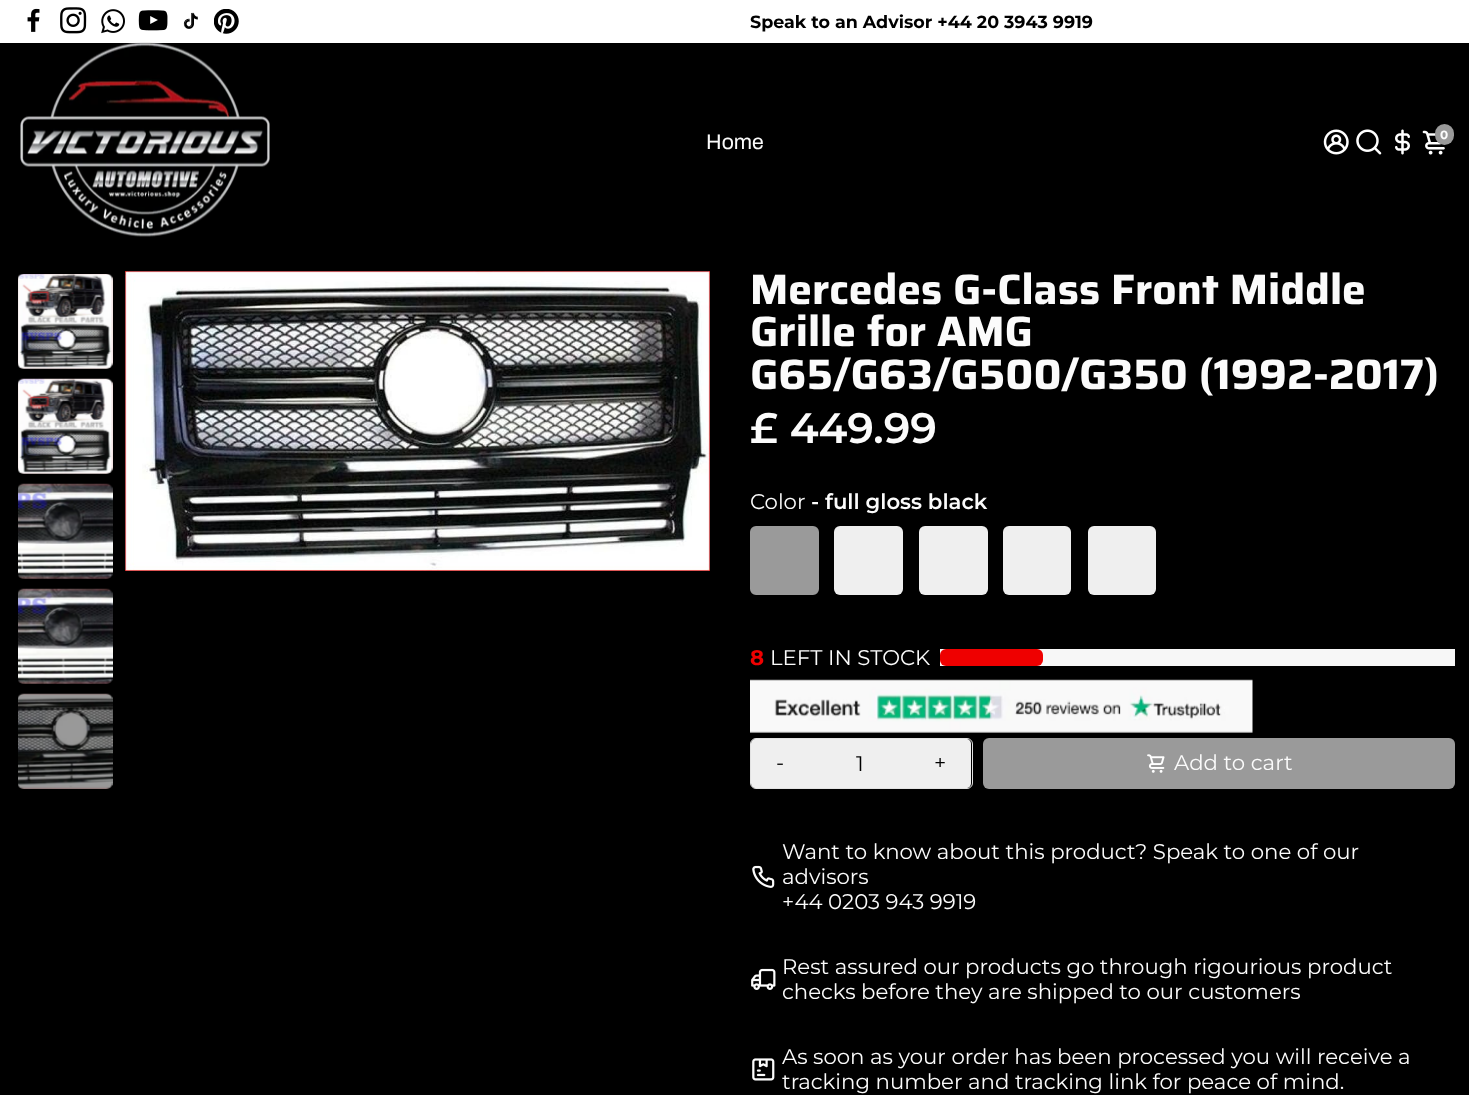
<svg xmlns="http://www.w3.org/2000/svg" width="1469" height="1095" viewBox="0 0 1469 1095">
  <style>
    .t1 { font: bold 17.5px Montserrat; fill: #000; }
    .t2 { font: 21.25px Archivo; fill: #fbfbfb; }
    .t3 { font: bold 12px Montserrat; fill: #fbfbfb; }
    .t4 { font: bold 42.5px Saira; fill: #fbfbfb; }
    .t5 { font: 600 42.5px Montserrat; fill: #fbfbfb; }
    .t6 { font: 21.25px Montserrat; fill: #fbfbfb; }
    .t7 { font: 600 21.25px Montserrat; fill: #fbfbfb; }
    .t8 { font: bold 21.25px Montserrat; fill: #ef0000; }
    .t9 { font: 21.25px Montserrat; fill: #000; }
  </style>
  <rect width="100%" height="100%" fill="#000"/>
  <rect x="0" y="0" width="1469" height="43" fill="#fff"/>
  <image x="27" y="8" width="13" height="24" href="images/1.png"/>
  <image x="60" y="7" width="27" height="27" href="images/2.png"/>
  <image x="101" y="9" width="24" height="25" href="images/3.png"/>
  <image x="138" y="10" width="30" height="21" href="images/4.png"/>
  <image x="183" y="12" width="15" height="17" href="images/5.png"/>
  <image x="214" y="9" width="25" height="25" href="images/6.png"/>
  <text x="750" y="28" class="t1">Speak to an Advisor +44 20 3943 9919</text>
  <image x="20" y="42" width="250" height="195" href="images/7.png"/>
  <text x="706" y="149" class="t2">Home</text>
  <image x="1323" y="129" width="26" height="26" href="images/8.png"/>
  <image x="1356" y="129" width="26" height="26" href="images/9.png"/>
  <image x="1395" y="129" width="15" height="26" href="images/10.png"/>
  <image x="1422" y="130" width="23" height="25" href="images/11.png"/>
  <rect x="1435" y="124" width="19" height="21" rx="9.5" fill="#9a9a9a"/>
  <text x="1440" y="139" class="t3">0</text>
  <image x="18" y="274" width="95" height="95" href="images/12.png"/>
  <image x="18" y="378" width="95" height="96" href="images/13.png"/>
  <image x="18" y="483" width="95" height="96" href="images/14.png"/>
  <image x="18" y="588" width="95" height="96" href="images/15.png"/>
  <image x="18" y="693" width="95" height="96" href="images/16.png"/>
  <image x="125" y="271" width="585" height="300" href="images/17.png"/>
  <text x="750" y="304" class="t4">Mercedes G-Class Front Middle</text>
  <text x="750" y="346" class="t4">Grille for AMG</text>
  <text x="750" y="389" class="t4">G65/G63/G500/G350 (1992-2017)</text>
  <text x="750" y="443" class="t5">£ 449.99</text>
  <text x="750" y="509" class="t6">Color</text>
  <text x="811" y="509" class="t7">- full gloss black</text>
  <rect x="751.5" y="527.5" width="66" height="66" rx="4.5" fill="#9a9a9a" stroke="#9a9a9a" stroke-width="3"/>
  <rect x="834" y="526" width="69" height="69" rx="6" fill="#efefef"/>
  <rect x="919" y="526" width="69" height="69" rx="6" fill="#efefef"/>
  <rect x="1003" y="526" width="68" height="69" rx="6" fill="#efefef"/>
  <rect x="1088" y="526" width="68" height="69" rx="6" fill="#efefef"/>
  <text x="750" y="665" class="t8">8</text>
  <text x="770" y="665" class="t6">LEFT IN STOCK</text>
  <rect x="940" y="649" width="515" height="17" fill="#f7f7f7"/>
  <rect x="940" y="649" width="103" height="17" rx="6" fill="#ef0000"/>
  <image x="750" y="679" width="503" height="54" href="images/18.png"/>
  <rect x="750.5" y="738.5" width="222" height="50" rx="5.5" fill="none" stroke="#e2e2e2"/>
  <path d="M756 739H810V788H756C753 788 751 786 751 783V744C751 741 753 739 756 739Z" fill="#efefef"/>
  <text x="776" y="770" class="t9">-</text>
  <rect x="810" y="739" width="100" height="49" fill="#efefef"/>
  <text x="856" y="771" class="t9">1</text>
  <path d="M910 739H966C969 739 971 741 971 744V783C971 786 969 788 966 788H910Z" fill="#efefef"/>
  <text x="934" y="770" class="t9">+</text>
  <rect x="983" y="738" width="472" height="51" rx="6" fill="#9a9a9a"/>
  <image x="1147" y="754" width="18" height="19" href="images/19.png"/>
  <text x="1174" y="770" class="t6">Add to cart</text>
  <image x="752" y="865" width="23" height="23" href="images/20.png"/>
  <text x="782" y="859" class="t6">Want to know about this product? Speak to one of our</text>
  <text x="782" y="884" class="t6">advisors</text>
  <text x="782" y="909" class="t6">+44 0203 943 9919</text>
  <image x="751" y="968" width="25" height="22" href="images/21.png"/>
  <text x="782" y="974" class="t6">Rest assured our products go through rigourious product</text>
  <text x="782" y="999" class="t6">checks before they are shipped to our customers</text>
  <image x="752" y="1058" width="23" height="23" href="images/22.png"/>
  <text x="782" y="1064" class="t6">As soon as your order has been processed you will receive a</text>
  <text x="782" y="1089" class="t6">tracking number and tracking link for peace of mind.</text>
</svg>
